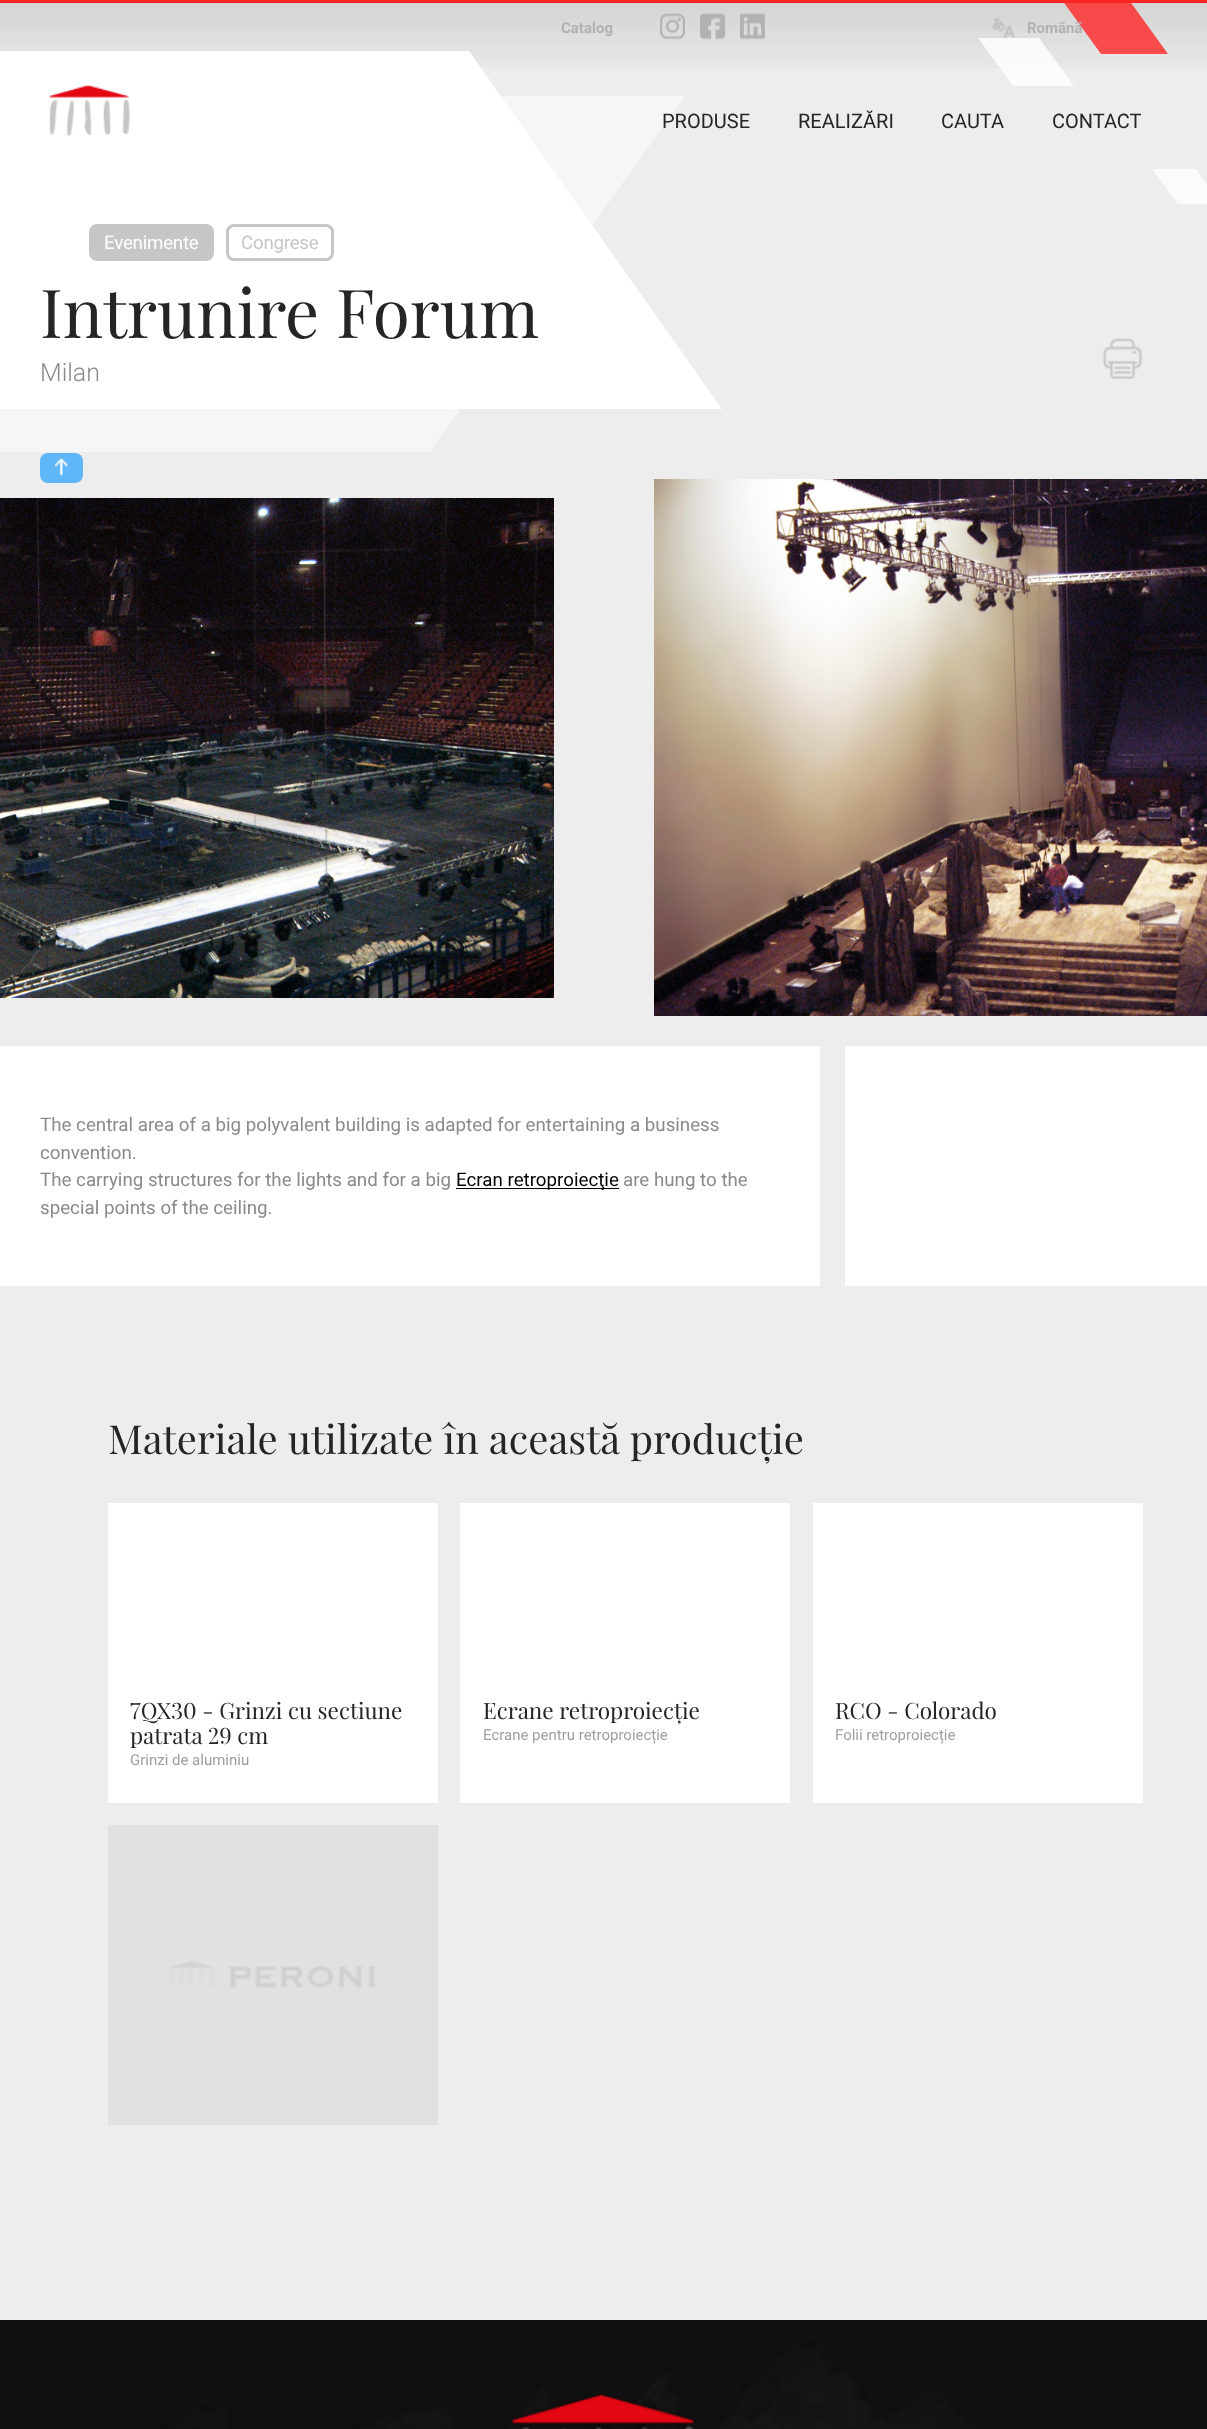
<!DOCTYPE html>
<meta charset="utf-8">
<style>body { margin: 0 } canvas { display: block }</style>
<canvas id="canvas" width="1207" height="2429"></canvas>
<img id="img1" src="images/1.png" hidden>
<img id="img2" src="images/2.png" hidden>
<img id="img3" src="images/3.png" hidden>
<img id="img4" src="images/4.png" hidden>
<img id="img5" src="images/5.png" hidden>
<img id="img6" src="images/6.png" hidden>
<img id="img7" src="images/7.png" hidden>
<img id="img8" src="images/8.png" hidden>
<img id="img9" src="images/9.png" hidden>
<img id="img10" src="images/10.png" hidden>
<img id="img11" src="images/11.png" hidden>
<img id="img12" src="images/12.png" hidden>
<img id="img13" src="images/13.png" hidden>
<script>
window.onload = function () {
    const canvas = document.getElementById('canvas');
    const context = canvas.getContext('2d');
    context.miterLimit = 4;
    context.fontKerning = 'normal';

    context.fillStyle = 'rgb(237, 237, 237)';
    context.fillRect(0, 0, 1207, 2429);
    context.drawImage(document.getElementById('img1'), 0, 3, 1207, 65);
    context.drawImage(document.getElementById('img2'), 660, 13, 25, 27);
    context.drawImage(document.getElementById('img3'), 700, 13, 25, 27);
    context.drawImage(document.getElementById('img4'), 740, 13, 25, 27);
    context.drawImage(document.getElementById('img5'), 992, 17, 23, 21);
    context.fillStyle = 'rgb(255, 255, 255)';
    context.beginPath();
    context.moveTo(-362, 51);
    context.lineTo(469, 51);
    context.lineTo(722, 409);
    context.lineTo(-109, 409);
    context.closePath();
    context.fill();
    context.fillStyle = 'rgba(255, 255, 255, 0.48)';
    context.beginPath();
    context.moveTo(-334, 96);
    context.lineTo(685, 96);
    context.lineTo(430, 452);
    context.lineTo(-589, 452);
    context.closePath();
    context.fill();
    context.drawImage(document.getElementById('img6'), 48, 84, 83, 52);
    context.fillStyle = 'rgba(255, 255, 255, 0.8)';
    context.beginPath();
    context.moveTo(978, 38);
    context.lineTo(1039, 38);
    context.lineTo(1074, 86);
    context.lineTo(1013, 86);
    context.closePath();
    context.fill();
    context.fillStyle = 'rgba(255, 37, 37, 0.8)';
    context.beginPath();
    context.moveTo(1062, 0);
    context.lineTo(1129, 0);
    context.lineTo(1168, 54);
    context.lineTo(1101, 54);
    context.closePath();
    context.fill();
    context.fillStyle = 'rgb(255, 37, 37)';
    context.fillRect(0, 0, 1207, 3);
    context.fillStyle = 'rgb(251, 251, 251)';
    context.beginPath();
    context.moveTo(1152, 169);
    context.lineTo(1196, 169);
    context.lineTo(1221, 204);
    context.lineTo(1178, 204);
    context.closePath();
    context.fill();
    context.fillStyle = 'rgb(198, 198, 198)';
    context.beginPath();
    context.roundRect(90.5, 225.5, 122, 34, 6.5);
    context.fill();
    context.strokeStyle = 'rgb(198, 198, 198)';
    context.lineWidth = 3;
    context.stroke();
    context.beginPath();
    context.roundRect(227.5, 225.5, 105, 34, 6.5);
    context.stroke();
    context.fillStyle = 'rgb(95, 182, 248)';
    context.beginPath();
    context.roundRect(40, 453, 43, 30, 8);
    context.fill();
    context.drawImage(document.getElementById('img7'), 54, 458, 14, 18);
    context.drawImage(document.getElementById('img8'), 1102, 338, 41, 41);
    context.drawImage(document.getElementById('img9'), 0, 498, 554, 500);
    context.drawImage(document.getElementById('img10'), 654, 479, 553, 537);
    context.fillStyle = 'rgb(255, 255, 255)';
    context.fillRect(0, 1046, 820, 240);
    context.fillStyle = 'rgb(0, 0, 0)';
    context.fillRect(456, 1188, 163, 1);
    context.fillStyle = 'rgb(255, 255, 255)';
    context.fillRect(845, 1046, 362, 240);
    context.fillRect(108, 1503, 330, 300);
    context.fillRect(460, 1503, 330, 300);
    context.fillRect(813, 1503, 330, 300);
    context.fillStyle = 'rgb(225, 225, 225)';
    context.fillRect(108, 1825, 330, 300);
    context.drawImage(document.getElementById('img11'), 170, 1961, 205, 27);
    context.drawImage(document.getElementById('img12'), 0, 2320, 1207, 109);
    context.drawImage(document.getElementById('img13'), 512, 2394, 183, 35);
    context.font = 'bold 15px Roboto';
    context.fillStyle = 'rgb(178, 178, 178)';
    context.fillText('Catalog', 561, 33);
    context.fillText('Romãnä', 1027, 33);
    context.font = '20px Roboto';
    context.fillStyle = 'rgb(35, 37, 39)';
    context.fillText('PRODUSE', 662, 128);
    context.fillText('REALIZĂRI', 798, 128);
    context.fillText('CAUTA', 941, 128);
    context.fillText('CONTACT', 1052, 128);
    context.letterSpacing = '-0.25px';
    context.font = '18.75px Roboto';
    context.fillStyle = 'rgb(255, 255, 255)';
    context.fillText('Evenimente', 104, 249);
    context.fillStyle = 'rgb(198, 198, 198)';
    context.fillText('Congrese', 241, 249);
    context.letterSpacing = '0px';
    context.font = '67.5px Playfair Display';
    context.fillStyle = 'rgb(35, 37, 39)';
    context.fillText('Intrunire Forum', 40, 338);
    context.font = '300 25px Roboto';
    context.fillStyle = 'rgb(138, 138, 138)';
    context.fillText('Milan', 40, 381);
    context.font = '18.75px Roboto';
    context.fillText('The central area of a big polyvalent building is adapted for entertaining a business', 40, 1131);
    context.fillText('convention.', 40, 1159);
    context.fillText('The carrying structures for the lights and for a big', 40, 1186);
    context.fillStyle = 'rgb(0, 0, 0)';
    context.fillText('Ecran retroproiecţie', 456, 1186);
    context.fillStyle = 'rgb(138, 138, 138)';
    context.fillText('are hung to the', 623, 1186);
    context.fillText('special points of the ceiling.', 40, 1214);
    context.font = '40px Playfair Display';
    context.fillStyle = 'rgb(35, 37, 39)';
    context.fillText('Materiale utilizate în această producție', 108, 1454);
    context.font = '22.5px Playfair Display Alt';
    context.fillText('7QX30 - Grinzi cu sectiune', 130, 1719);
    context.fillText('patrata 29 cm', 130, 1744);
    context.font = '15px Roboto';
    context.fillStyle = 'rgb(158, 158, 158)';
    context.fillText('Grinzi de aluminiu', 130, 1765);
    context.font = '22.5px Playfair Display';
    context.fillStyle = 'rgb(35, 37, 39)';
    context.fillText('Ecrane retroproiecție', 483, 1719);
    context.font = '15px Roboto';
    context.fillStyle = 'rgb(158, 158, 158)';
    context.fillText('Ecrane pentru retroproiecție', 483, 1740);
    context.font = '22.5px Playfair Display';
    context.fillStyle = 'rgb(35, 37, 39)';
    context.fillText('RCO - Colorado', 835, 1719);
    context.font = '15px Roboto';
    context.fillStyle = 'rgb(158, 158, 158)';
    context.fillText('Folii retroproiecție', 835, 1740);
};
</script>
